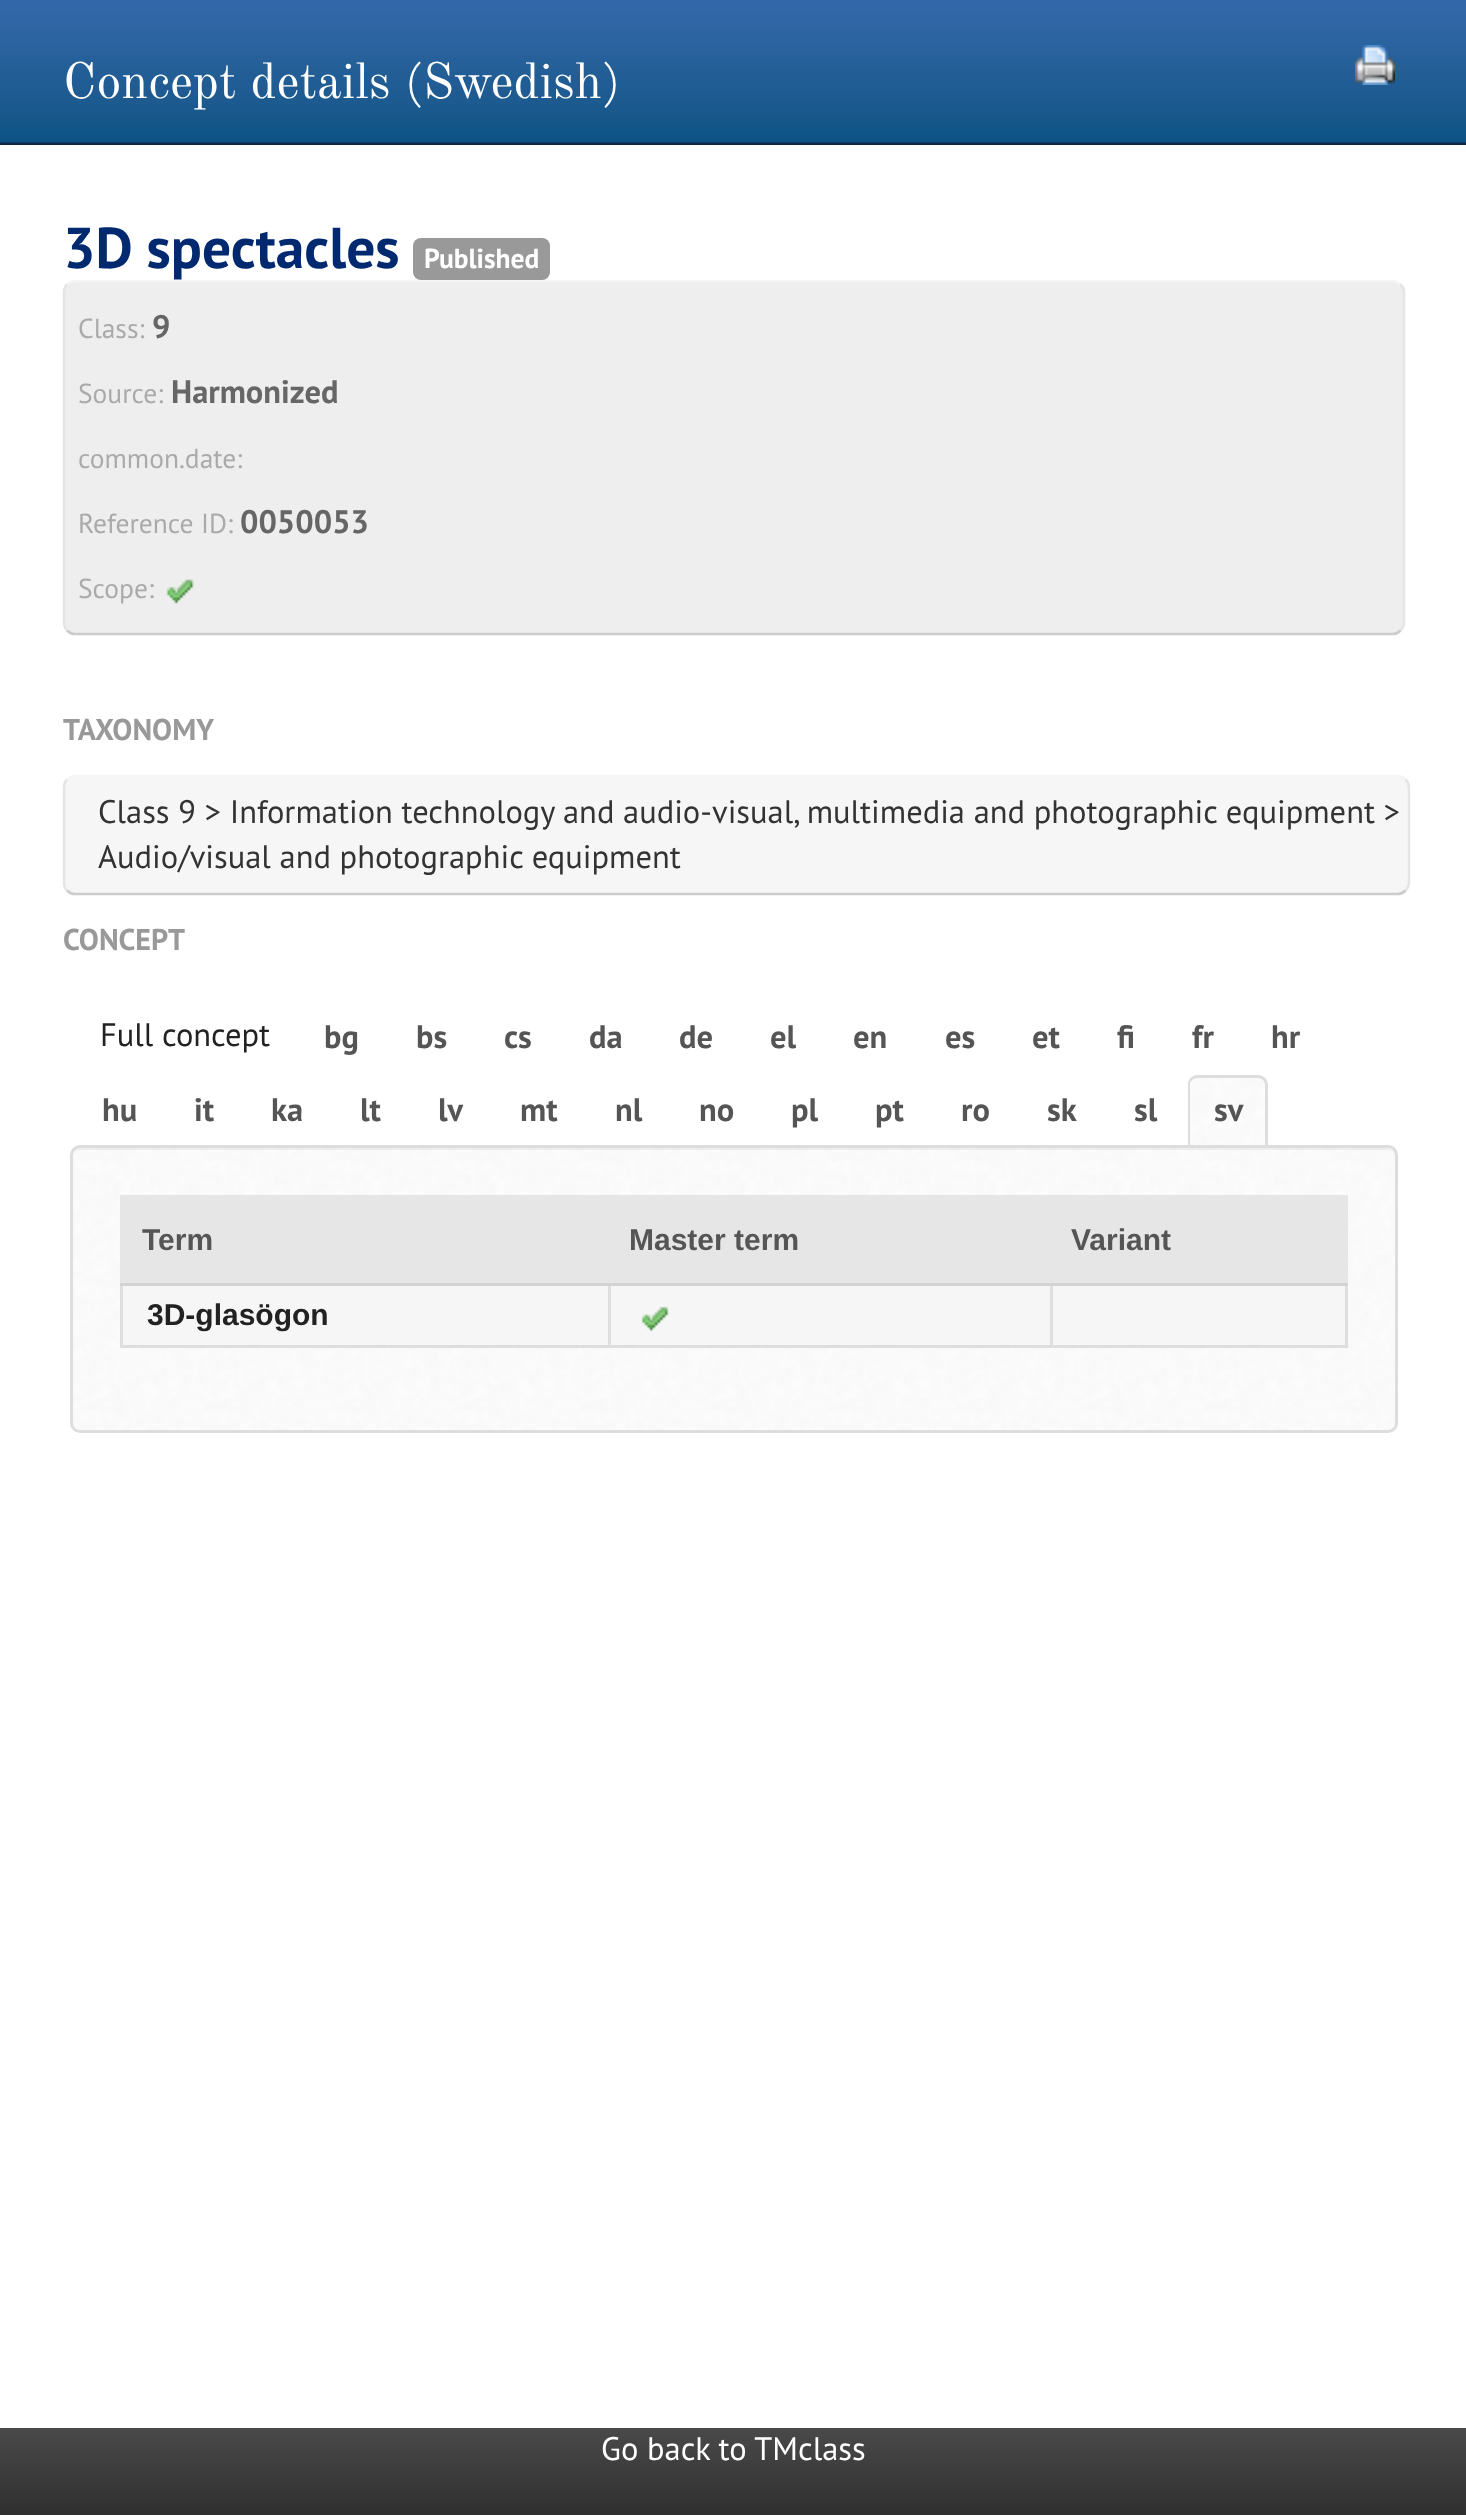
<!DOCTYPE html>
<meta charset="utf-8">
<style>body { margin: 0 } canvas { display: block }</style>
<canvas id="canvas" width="1466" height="2515"></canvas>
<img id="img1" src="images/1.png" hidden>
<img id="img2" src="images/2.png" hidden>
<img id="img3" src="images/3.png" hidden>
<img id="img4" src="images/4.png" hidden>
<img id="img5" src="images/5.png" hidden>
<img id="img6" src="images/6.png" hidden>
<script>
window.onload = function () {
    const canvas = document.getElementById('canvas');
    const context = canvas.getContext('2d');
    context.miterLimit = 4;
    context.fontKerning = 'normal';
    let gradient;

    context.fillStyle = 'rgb(255, 255, 255)';
    context.fillRect(0, 0, 1466, 2515);
    context.drawImage(document.getElementById('img1'), 0, 0, 1466, 145);
    context.drawImage(document.getElementById('img2'), 1355, 45, 40, 40);
    context.fillStyle = 'rgb(238, 238, 238)';
    context.beginPath();
    context.roundRect(63, 280, 1342, 355, 13);
    context.fill();
    context.beginPath();
    context.moveTo(67, 284.5);
    context.bezierCurveTo(69, 282.5, 72, 281, 75, 281);
    context.lineTo(1392.5, 281);
    context.bezierCurveTo(1395.5, 281, 1398.5, 282.5, 1400.5, 284.5);
    context.strokeStyle = 'rgb(245, 245, 245)';
    context.lineWidth = 2.5;
    context.stroke();
    context.fillStyle = 'rgb(153, 153, 153)';
    context.beginPath();
    context.roundRect(413, 238, 137, 42, 8);
    context.fill();
    context.beginPath();
    context.moveTo(1400.5, 284.5);
    context.bezierCurveTo(1402.5, 286.5, 1404, 289.5, 1404, 292.5);
    context.lineTo(1404, 622.5);
    context.bezierCurveTo(1404, 625.5, 1402.5, 628.5, 1400.5, 630.5);
    context.strokeStyle = 'rgb(229, 229, 229)';
    context.stroke();
    context.beginPath();
    context.moveTo(1400.5, 630.5);
    context.bezierCurveTo(1398.5, 632.5, 1395.5, 634, 1392.5, 634);
    context.lineTo(75, 634);
    context.bezierCurveTo(72, 634, 69, 632.5, 67, 630.5);
    context.strokeStyle = 'rgb(204, 204, 204)';
    context.stroke();
    context.beginPath();
    context.moveTo(67, 630.5);
    context.bezierCurveTo(65, 628.5, 64, 625.5, 64, 622.5);
    context.lineTo(64, 292.5);
    context.bezierCurveTo(64, 289.5, 65, 286.5, 67, 284.5);
    context.strokeStyle = 'rgb(229, 229, 229)';
    context.stroke();
    context.drawImage(document.getElementById('img3'), 166, 579, 28, 25);
    context.fillStyle = 'rgb(246, 246, 246)';
    context.beginPath();
    context.roundRect(63, 775, 1347, 120, 13);
    context.fill();
    context.beginPath();
    context.moveTo(67, 779.5);
    context.bezierCurveTo(69, 777.5, 72, 776, 75, 776);
    context.lineTo(1397.5, 776);
    context.bezierCurveTo(1400.5, 776, 1403.5, 777.5, 1405.5, 779.5);
    context.strokeStyle = 'rgb(245, 245, 245)';
    context.stroke();
    context.beginPath();
    context.moveTo(1405.5, 779.5);
    context.bezierCurveTo(1407.5, 781.5, 1409, 784.5, 1409, 787.5);
    context.lineTo(1409, 882.5);
    context.bezierCurveTo(1409, 885.5, 1407.5, 888.5, 1405.5, 890.5);
    context.strokeStyle = 'rgb(229, 229, 229)';
    context.stroke();
    context.beginPath();
    context.moveTo(1405.5, 890.5);
    context.bezierCurveTo(1403.5, 892.5, 1400.5, 894, 1397.5, 894);
    context.lineTo(75, 894);
    context.bezierCurveTo(72, 894, 69, 892.5, 67, 890.5);
    context.strokeStyle = 'rgb(204, 204, 204)';
    context.stroke();
    context.beginPath();
    context.moveTo(67, 890.5);
    context.bezierCurveTo(65, 888.5, 64, 885.5, 64, 882.5);
    context.lineTo(64, 787.5);
    context.bezierCurveTo(64, 784.5, 65, 781.5, 67, 779.5);
    context.strokeStyle = 'rgb(229, 229, 229)';
    context.stroke();
    context.drawImage(document.getElementById('img4'), 1188, 1075, 79, 70);
    context.fillStyle = 'rgb(221, 221, 221)';
    context.beginPath();
    context.moveTo(1198, 1075);
    context.lineTo(1258, 1075);
    context.bezierCurveTo(1263, 1075, 1268, 1079, 1268, 1085);
    context.lineTo(1268, 1145);
    context.lineTo(1188, 1145);
    context.lineTo(1188, 1085);
    context.bezierCurveTo(1188, 1079, 1192, 1075, 1198, 1075);
    context.closePath();
    context.moveTo(1198, 1078);
    context.lineTo(1258, 1078);
    context.bezierCurveTo(1262, 1078, 1265, 1081, 1265, 1085);
    context.lineTo(1265, 1145);
    context.lineTo(1190, 1145);
    context.lineTo(1190, 1085);
    context.bezierCurveTo(1190, 1081, 1193, 1078, 1198, 1078);
    context.closePath();
    context.fill('evenodd');
    context.drawImage(document.getElementById('img5'), 73, 1148, 1322, 282);
    context.fillStyle = 'rgba(0, 0, 0, 0.05)';
    context.beginPath();
    context.moveTo(80, 1150);
    context.lineTo(1388, 1150);
    context.bezierCurveTo(1392, 1150, 1395, 1153, 1395, 1158);
    context.lineTo(1395, 1156);
    context.bezierCurveTo(1395, 1152, 1391, 1148, 1387, 1148);
    context.lineTo(81, 1148);
    context.bezierCurveTo(78, 1148, 75, 1150, 73, 1153);
    context.bezierCurveTo(75, 1151, 78, 1150, 80, 1150);
    context.closePath();
    context.fill();
    context.beginPath();
    context.roundRect(71.5, 1146.5, 1325, 285, 8.5);
    context.strokeStyle = 'rgb(221, 221, 221)';
    context.lineWidth = 3;
    context.stroke();
    context.fillStyle = 'rgb(230, 230, 230)';
    context.fillRect(120, 1195, 1228, 88);
    context.fillStyle = 'rgb(222, 222, 222)';
    context.fillRect(120, 1345, 1228, 3);
    context.fillRect(120, 1283, 3, 65);
    context.fillStyle = 'rgb(246, 246, 246)';
    context.fillRect(123, 1286, 1222, 59);
    context.fillStyle = 'rgb(222, 222, 222)';
    context.fillRect(608, 1283, 3, 65);
    context.fillRect(1345, 1283, 3, 65);
    context.fillRect(1050, 1283, 3, 65);
    context.fillStyle = 'rgb(211, 211, 211)';
    context.fillRect(120, 1283, 1228, 3);
    context.drawImage(document.getElementById('img6'), 641, 1306, 28, 26);
    gradient = context.createLinearGradient(734, 2428, 734, 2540);
    gradient.addColorStop(0.01, 'rgb(74, 73, 74)');
    gradient.addColorStop(1, 'rgb(41, 40, 41)');
    context.fillStyle = gradient;
    context.fillRect(0, 2428, 1466, 87);
    context.font = '50px Old Standard TT';
    context.fillStyle = 'rgb(255, 255, 255)';
    context.fillText('Concept details (Swedish)', 63, 98);
    context.font = 'bold 57.5px PT Sans';
    context.fillStyle = 'rgb(0, 41, 112)';
    context.fillText('3D spectacles', 63, 268);
    context.font = 'bold 27.5px PT Sans';
    context.fillStyle = 'rgb(255, 255, 255)';
    context.fillText('Published', 424, 268);
    context.font = '27.5px PT Sans';
    context.fillStyle = 'rgb(170, 170, 170)';
    context.fillText('Class:', 78, 338);
    context.font = 'bold 32.5px PT Sans';
    context.fillStyle = 'rgb(102, 102, 102)';
    context.fillText('9', 152, 338);
    context.font = '27.5px PT Sans';
    context.fillStyle = 'rgb(170, 170, 170)';
    context.fillText('Source:', 78, 403);
    context.font = 'bold 32.5px PT Sans';
    context.fillStyle = 'rgb(102, 102, 102)';
    context.fillText('Harmonized', 171, 403);
    context.font = '27.5px PT Sans';
    context.fillStyle = 'rgb(170, 170, 170)';
    context.fillText('common.date:', 78, 468);
    context.fillText('Reference ID:', 78, 533);
    context.font = 'bold 32.5px PT Sans';
    context.fillStyle = 'rgb(102, 102, 102)';
    context.fillText('0050053', 240, 533);
    context.font = '27.5px PT Sans';
    context.fillStyle = 'rgb(170, 170, 170)';
    context.fillText('Scope:', 78, 598);
    context.font = 'bold 30px PT Sans';
    context.fillStyle = 'rgb(153, 153, 153)';
    context.fillText('TAXONOMY', 63, 740);
    context.font = '32.5px PT Sans';
    context.fillStyle = 'rgb(51, 51, 51)';
    context.fillText('Class 9 > Information technology and audio-visual, multimedia and photographic equipment >', 98, 823);
    context.fillText('Audio/visual and photographic equipment', 98, 868);
    context.font = 'bold 30px PT Sans';
    context.fillStyle = 'rgb(153, 153, 153)';
    context.fillText('CONCEPT', 63, 950);
    context.font = '32.5px PT Sans';
    context.fillStyle = 'rgb(34, 34, 34)';
    context.fillText('Full concept', 100, 1046);
    context.font = 'bold 32.5px PT Sans';
    context.fillStyle = 'rgb(85, 85, 85)';
    context.fillText('bg', 324, 1048);
    context.fillText('bs', 416, 1048);
    context.fillText('cs', 504, 1048);
    context.fillText('da', 589, 1048);
    context.fillText('de', 679, 1048);
    context.fillText('el', 770, 1048);
    context.fillText('en', 853, 1048);
    context.fillText('es', 945, 1048);
    context.fillText('et', 1032, 1048);
    context.fillText('fi', 1117, 1048);
    context.fillText('fr', 1192, 1048);
    context.fillText('hr', 1271, 1048);
    context.fillText('hu', 102, 1121);
    context.fillText('it', 194, 1121);
    context.fillText('ka', 271, 1121);
    context.fillText('lt', 360, 1121);
    context.fillText('lv', 438, 1121);
    context.fillText('mt', 520, 1121);
    context.fillText('nl', 615, 1121);
    context.fillText('no', 699, 1121);
    context.fillText('pl', 791, 1121);
    context.fillText('pt', 875, 1121);
    context.fillText('ro', 961, 1121);
    context.fillText('sk', 1047, 1121);
    context.fillText('sl', 1134, 1121);
    context.fillText('sv', 1214, 1121);
    context.font = 'bold 30px Liberation Sans';
    context.fillText('Term', 142, 1250);
    context.fillText('Master term', 629, 1250);
    context.fillText('Variant', 1071, 1250);
    context.fillStyle = 'rgb(34, 34, 34)';
    context.fillText('3D-glasögon', 147, 1325);
    context.font = '32.5px PT Sans';
    context.fillStyle = 'rgb(255, 255, 255)';
    context.fillText('Go back to TMclass', 601, 2460);
};
</script>
